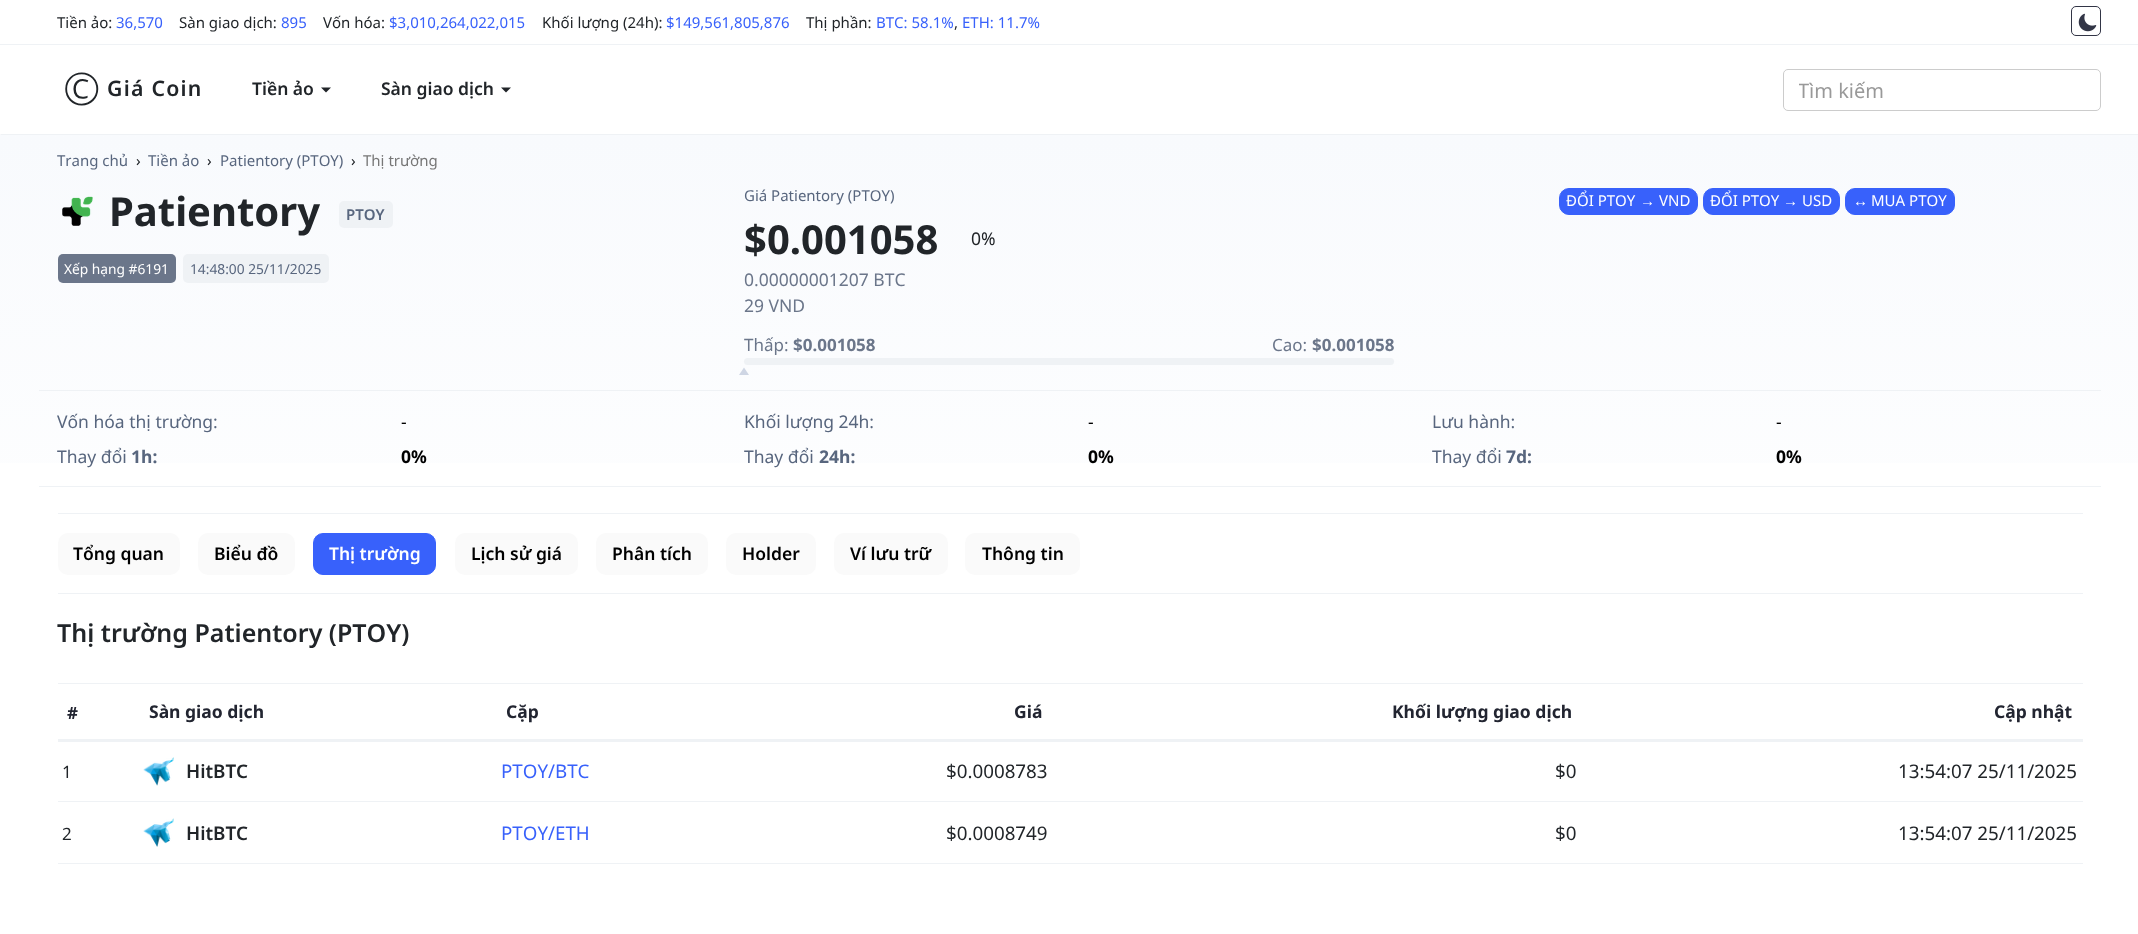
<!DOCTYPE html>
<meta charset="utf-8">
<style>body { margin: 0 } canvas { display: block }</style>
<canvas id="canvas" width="2138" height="934"></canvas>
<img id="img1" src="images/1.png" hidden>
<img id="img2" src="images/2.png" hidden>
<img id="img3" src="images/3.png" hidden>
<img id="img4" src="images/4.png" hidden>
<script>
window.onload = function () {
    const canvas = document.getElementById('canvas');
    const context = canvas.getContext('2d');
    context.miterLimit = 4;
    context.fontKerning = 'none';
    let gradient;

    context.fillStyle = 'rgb(255, 255, 255)';
    context.fillRect(0, 0, 2138, 934);
    context.fillStyle = 'rgb(239, 242, 245)';
    context.fillRect(0, 44, 2138, 1);
    context.beginPath();
    context.roundRect(2071.5, 6.5, 29, 29, 4.5);
    context.strokeStyle = 'rgb(50, 53, 70)';
    context.stroke();
    context.drawImage(document.getElementById('img1'), 2078, 13, 19, 19);
    context.beginPath();
    context.moveTo(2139, 135);
    context.lineTo(0, 135);
    context.lineTo(1, 134);
    context.lineTo(2138, 134);
    context.closePath();
    context.fill();
    context.fillStyle = 'rgb(33, 37, 41)';
    context.beginPath();
    context.moveTo(321, 87.5);
    context.lineTo(331, 87.5);
    context.lineTo(326, 92.5);
    context.closePath();
    context.fill();
    context.beginPath();
    context.moveTo(501, 87.5);
    context.lineTo(511, 87.5);
    context.lineTo(506, 92.5);
    context.closePath();
    context.fill();
    context.beginPath();
    context.roundRect(1783.5, 69.5, 317, 41, 4.5);
    context.strokeStyle = 'rgb(204, 204, 204)';
    context.stroke();
    gradient = context.createLinearGradient(1069, 135, 1069, 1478);
    gradient.addColorStop(0, 'rgb(248, 250, 253)');
    gradient.addColorStop(0.38, 'rgb(255, 255, 255)');
    context.fillStyle = gradient;
    context.fillRect(0, 135, 2138, 328);
    context.drawImage(document.getElementById('img2'), 62, 196, 31, 30);
    context.fillStyle = 'rgb(239, 242, 245)';
    context.beginPath();
    context.roundRect(339, 201, 54, 27, 5);
    context.fill();
    context.fillStyle = 'rgb(107, 118, 138)';
    context.beginPath();
    context.roundRect(58, 254, 118, 29, 5);
    context.fill();
    context.fillStyle = 'rgb(239, 242, 245)';
    context.beginPath();
    context.roundRect(183, 254, 146, 29, 5);
    context.fill();
    context.beginPath();
    context.roundRect(744, 358, 650, 7, 3.5);
    context.fill();
    context.fillStyle = 'rgb(207, 214, 228)';
    context.beginPath();
    context.moveTo(749, 375);
    context.lineTo(739, 375);
    context.lineTo(744, 367.5);
    context.closePath();
    context.fill();
    context.fillStyle = 'rgb(56, 97, 251)';
    context.beginPath();
    context.roundRect(1559.5, 188.5, 138, 26, 9.5);
    context.fill();
    context.strokeStyle = 'rgb(56, 97, 251)';
    context.stroke();
    context.beginPath();
    context.roundRect(1703.5, 188.5, 136, 26, 9.5);
    context.fill();
    context.stroke();
    context.beginPath();
    context.roundRect(1845.5, 188.5, 109, 26, 9.5);
    context.fill();
    context.stroke();
    context.fillStyle = 'rgb(239, 242, 245)';
    context.fillRect(39, 390, 2062, 1);
    context.fillRect(39, 486, 2062, 1);
    context.fillRect(58, 513, 2025, 1);
    context.fillRect(58, 593, 2025, 1);
    context.fillStyle = 'rgb(250, 250, 250)';
    context.beginPath();
    context.roundRect(58, 533, 122, 42, 10);
    context.fill();
    context.beginPath();
    context.roundRect(198, 533, 97, 42, 10);
    context.fill();
    context.fillStyle = 'rgb(56, 97, 251)';
    context.beginPath();
    context.roundRect(313.5, 533.5, 122, 41, 9.5);
    context.fill();
    context.stroke();
    context.fillStyle = 'rgb(250, 250, 250)';
    context.beginPath();
    context.roundRect(455, 533, 123, 42, 10);
    context.fill();
    context.beginPath();
    context.roundRect(596, 533, 112, 42, 10);
    context.fill();
    context.beginPath();
    context.roundRect(726, 533, 90, 42, 10);
    context.fill();
    context.beginPath();
    context.roundRect(834, 533, 114, 42, 10);
    context.fill();
    context.beginPath();
    context.roundRect(965, 533, 115, 42, 10);
    context.fill();
    context.fillStyle = 'rgb(239, 242, 245)';
    context.fillRect(58, 683, 2025, 1);
    context.fillRect(58, 863, 2025, 1);
    context.fillRect(58, 739, 2025, 3);
    context.drawImage(document.getElementById('img3'), 143, 757, 31, 29);
    context.drawImage(document.getElementById('img4'), 143, 818, 31, 29);
    context.fillRect(58, 801, 2025, 1);
    context.font = '15px Noto Sans';
    context.fillStyle = 'rgb(33, 37, 41)';
    context.fillText('Tiền ảo:', 57, 28);
    context.fillStyle = 'rgb(56, 97, 251)';
    context.fillText('36,570', 116, 28);
    context.fillStyle = 'rgb(33, 37, 41)';
    context.fillText('Sàn giao dịch:', 179, 28);
    context.fillStyle = 'rgb(56, 97, 251)';
    context.fillText('895', 281, 28);
    context.fillStyle = 'rgb(33, 37, 41)';
    context.fillText('Vốn hóa:', 323, 28);
    context.fillStyle = 'rgb(56, 97, 251)';
    context.fillText('$3,010,264,022,015', 389, 28);
    context.fillStyle = 'rgb(33, 37, 41)';
    context.fillText('Khối lượng (24h):', 542, 28);
    context.fillStyle = 'rgb(56, 97, 251)';
    context.fillText('$149,561,805,876', 666, 28);
    context.fillStyle = 'rgb(33, 37, 41)';
    context.fillText('Thị phần:', 806, 28);
    context.fillStyle = 'rgb(56, 97, 251)';
    context.fillText('BTC: 58.1%', 876, 28);
    context.fillStyle = 'rgb(33, 37, 41)';
    context.fillText(',', 954, 28);
    context.fillStyle = 'rgb(56, 97, 251)';
    context.fillText('ETH: 11.7%', 962, 28);
    context.letterSpacing = '1.25px';
    context.font = '300 45px Noto Sans';
    context.fillStyle = 'rgb(33, 37, 41)';
    context.fillText('©', 63, 105);
    context.font = '600 21.25px Noto Sans';
    context.fillText('Giá Coin', 107, 96);
    context.letterSpacing = '0px';
    context.font = '600 17.5px Noto Sans';
    context.fillText('Tiền ảo', 252, 95);
    context.fillText('Sàn giao dịch', 381, 95);
    context.save();
    context.beginPath();
    context.rect(1799, 76, 281, 28);
    context.clip();
    context.font = '20px Noto Sans';
    context.fillStyle = 'rgb(153, 153, 153)';
    context.fillText('Tìm kiếm', 1798, 98);
    context.restore();
    context.font = '15px Noto Sans';
    context.fillStyle = 'rgb(88, 102, 126)';
    context.fillText('Trang chủ', 57, 166);
    context.fillStyle = 'rgb(33, 37, 41)';
    context.fillText('›', 136, 166);
    context.fillStyle = 'rgb(88, 102, 126)';
    context.fillText('Tiền ảo', 148, 166);
    context.fillStyle = 'rgb(33, 37, 41)';
    context.fillText('›', 207, 166);
    context.fillStyle = 'rgb(88, 102, 126)';
    context.fillText('Patientory (PTOY)', 220, 166);
    context.fillStyle = 'rgb(33, 37, 41)';
    context.fillText('›', 351, 166);
    context.fillStyle = 'rgb(119, 119, 119)';
    context.fillText('Thị trường', 363, 166);
    context.font = 'bold 40px Noto Sans';
    context.fillStyle = 'rgb(33, 37, 41)';
    context.fillText('Patientory', 109, 226);
    context.font = '600 15px Noto Sans';
    context.fillStyle = 'rgb(88, 102, 126)';
    context.fillText('PTOY', 346, 220);
    context.font = '13.75px Noto Sans';
    context.fillStyle = 'rgb(255, 255, 255)';
    context.fillText('Xếp hạng #6191', 64, 274);
    context.fillStyle = 'rgb(88, 102, 126)';
    context.fillText('14:48:00 25/11/2025', 190, 274);
    context.font = '15px Noto Sans';
    context.fillText('Giá Patientory (PTOY)', 744, 201);
    context.font = 'bold 40px Noto Sans';
    context.fillStyle = 'rgb(33, 37, 41)';
    context.fillText('$0.001058', 744, 254);
    context.font = '17.5px Noto Sans';
    context.fillText('0%', 971, 245);
    context.fillStyle = 'rgb(107, 118, 138)';
    context.fillText('0.00000001207 BTC', 744, 286);
    context.fillText('29 VND', 744, 312);
    context.font = '17px Noto Sans';
    context.fillText('Thấp:', 744, 351);
    context.font = 'bold 17px Noto Sans';
    context.fillText('$0.001058', 793, 351);
    context.font = '17px Noto Sans';
    context.fillText('Cao:', 1272, 351);
    context.font = 'bold 17px Noto Sans';
    context.fillText('$0.001058', 1312, 351);
    context.font = '15px Noto Sans';
    context.fillStyle = 'rgb(255, 255, 255)';
    context.fillText('ĐỔI PTOY', 1566, 206);
    context.font = '15px Liberation Sans';
    context.fillText('→', 1640, 206);
    context.font = '15px Noto Sans';
    context.fillText('VND', 1659, 206);
    context.fillText('ĐỔI PTOY', 1710, 206);
    context.font = '15px Liberation Sans';
    context.fillText('→', 1783, 206);
    context.font = '15px Noto Sans';
    context.fillText('USD', 1802, 206);
    context.font = '15px Liberation Sans';
    context.fillText('↔', 1853, 206);
    context.font = '15px Noto Sans';
    context.fillText('MUA PTOY', 1871, 206);
    context.font = '17.5px Noto Sans';
    context.fillStyle = 'rgb(88, 102, 126)';
    context.fillText('Vốn hóa thị trường:', 57, 428);
    context.fillStyle = 'rgb(0, 0, 0)';
    context.fillText('-', 401, 428);
    context.fillStyle = 'rgb(88, 102, 126)';
    context.fillText('Khối lượng 24h:', 744, 428);
    context.fillStyle = 'rgb(0, 0, 0)';
    context.fillText('-', 1088, 428);
    context.fillStyle = 'rgb(88, 102, 126)';
    context.fillText('Lưu hành:', 1432, 428);
    context.fillStyle = 'rgb(0, 0, 0)';
    context.fillText('-', 1776, 428);
    context.fillStyle = 'rgb(88, 102, 126)';
    context.fillText('Thay đổi', 57, 463);
    context.font = 'bold 17.5px Noto Sans';
    context.fillText('1h:', 131, 463);
    context.fillStyle = 'rgb(0, 0, 0)';
    context.fillText('0%', 401, 463);
    context.font = '17.5px Noto Sans';
    context.fillStyle = 'rgb(88, 102, 126)';
    context.fillText('Thay đổi', 744, 463);
    context.font = 'bold 17.5px Noto Sans';
    context.fillText('24h:', 819, 463);
    context.fillStyle = 'rgb(0, 0, 0)';
    context.fillText('0%', 1088, 463);
    context.font = '17.5px Noto Sans';
    context.fillStyle = 'rgb(88, 102, 126)';
    context.fillText('Thay đổi', 1432, 463);
    context.font = 'bold 17.5px Noto Sans';
    context.fillText('7d:', 1506, 463);
    context.fillStyle = 'rgb(0, 0, 0)';
    context.fillText('0%', 1776, 463);
    context.font = '600 17.5px Noto Sans';
    context.fillText('Tổng quan', 73, 560);
    context.fillText('Biểu đồ', 214, 560);
    context.fillStyle = 'rgb(255, 255, 255)';
    context.fillText('Thị trường', 329, 560);
    context.fillStyle = 'rgb(0, 0, 0)';
    context.fillText('Lịch sử giá', 471, 560);
    context.fillText('Phân tích', 612, 560);
    context.fillText('Holder', 742, 560);
    context.fillText('Ví lưu trữ', 850, 560);
    context.fillText('Thông tin', 982, 560);
    context.font = '600 25px Noto Sans';
    context.fillStyle = 'rgb(33, 37, 41)';
    context.fillText('Thị trường Patientory (PTOY)', 57, 642);
    context.font = 'bold 17px Noto Sans';
    context.fillStyle = 'rgb(34, 37, 49)';
    context.fillText('#', 67, 719);
    context.font = 'bold 17.5px Noto Sans';
    context.fillText('Sàn giao dịch', 149, 718);
    context.fillText('Cặp', 506, 718);
    context.fillText('Giá', 1014, 718);
    context.fillText('Khối lượng giao dịch', 1392, 718);
    context.fillText('Cập nhật', 1994, 718);
    context.font = '17px Noto Sans';
    context.fillStyle = 'rgb(33, 37, 41)';
    context.fillText('1', 62, 778);
    context.font = '600 18.75px Noto Sans';
    context.fillText('HitBTC', 186, 778);
    context.font = '18.75px Noto Sans';
    context.fillStyle = 'rgb(56, 97, 251)';
    context.fillText('PTOY/BTC', 501, 778);
    context.fillStyle = 'rgb(33, 37, 41)';
    context.fillText('$0.0008783', 946, 778);
    context.fillText('$0', 1555, 778);
    context.fillText('13:54:07 25/11/2025', 1898, 778);
    context.font = '17px Noto Sans';
    context.fillText('2', 62, 840);
    context.font = '600 18.75px Noto Sans';
    context.fillText('HitBTC', 186, 840);
    context.font = '18.75px Noto Sans';
    context.fillStyle = 'rgb(56, 97, 251)';
    context.fillText('PTOY/ETH', 501, 840);
    context.fillStyle = 'rgb(33, 37, 41)';
    context.fillText('$0.0008749', 946, 840);
    context.fillText('$0', 1555, 840);
    context.fillText('13:54:07 25/11/2025', 1898, 840);
};
</script>
